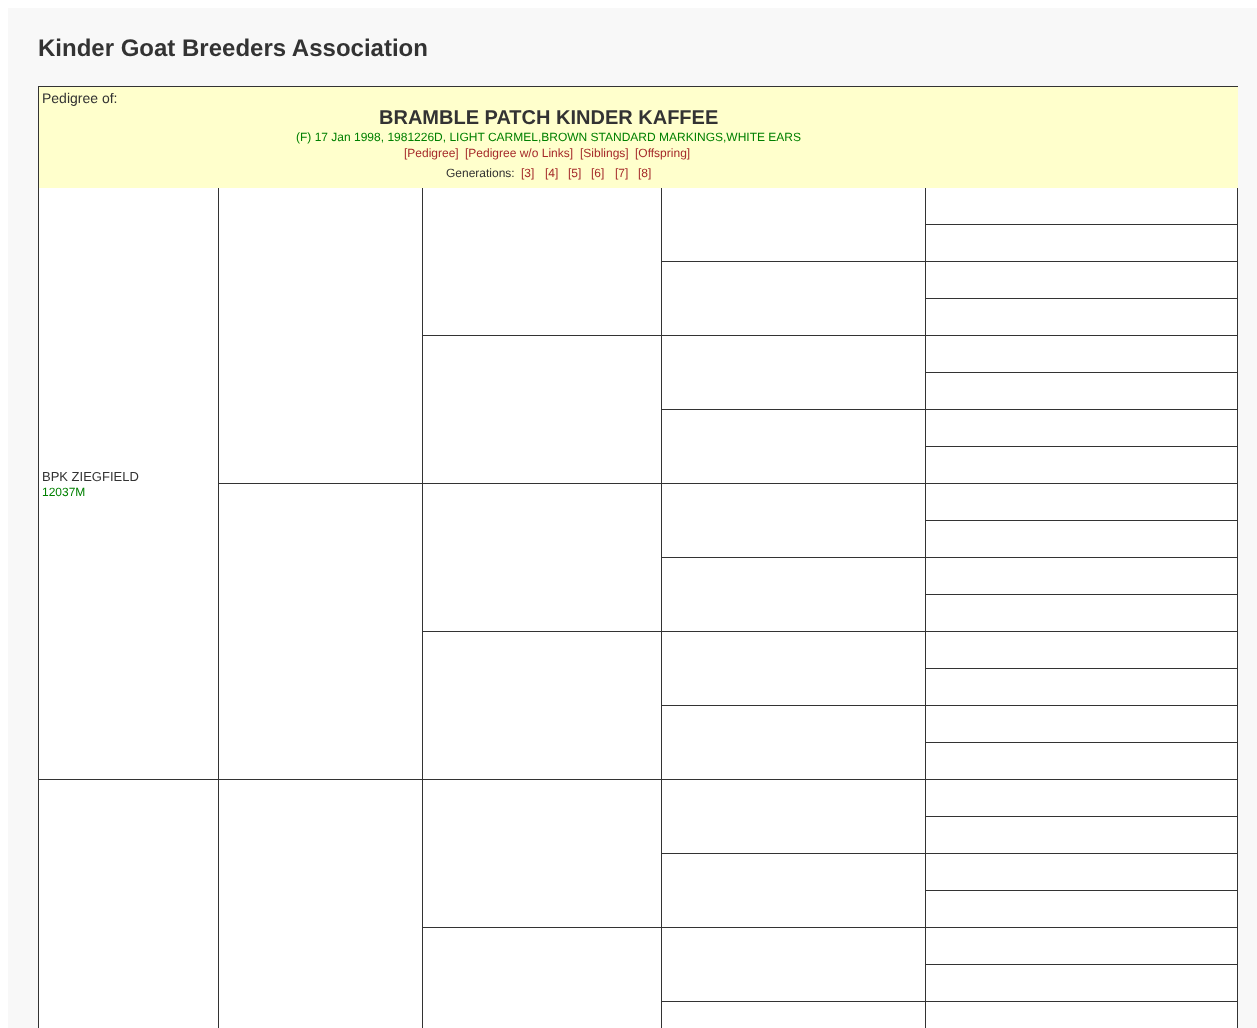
<!DOCTYPE html>
<meta charset="utf-8">
<style>body { margin: 0 } canvas { display: block }</style>
<canvas id="canvas" width="1257" height="1028"></canvas>
<script>
window.onload = function () {
    const canvas = document.getElementById('canvas');
    const context = canvas.getContext('2d');
    context.miterLimit = 4;
    context.fontKerning = 'normal';

    context.fillStyle = 'rgb(255, 255, 255)';
    context.fillRect(0, 0, 1257, 1028);
    context.fillStyle = 'rgb(248, 248, 248)';
    context.fillRect(8, 8, 1249, 1020);
    context.fillStyle = 'rgb(255, 255, 255)';
    context.fillRect(39, 188, 1198, 840);
    context.fillStyle = 'rgb(51, 51, 51)';
    context.fillRect(38, 86, 1200, 1);
    context.fillRect(1237, 86, 1, 942);
    context.fillRect(38, 86, 1, 942);
    context.fillRect(925, 483, 313, 1);
    context.fillRect(925, 520, 313, 1);
    context.fillRect(925, 557, 313, 1);
    context.fillRect(925, 594, 313, 1);
    context.fillRect(925, 631, 313, 1);
    context.fillRect(925, 668, 313, 1);
    context.fillRect(925, 705, 313, 1);
    context.fillRect(925, 742, 313, 1);
    context.fillRect(925, 779, 313, 1);
    context.fillRect(925, 816, 313, 1);
    context.fillRect(925, 853, 313, 1);
    context.fillRect(925, 890, 313, 1);
    context.fillRect(925, 927, 313, 1);
    context.fillRect(925, 964, 313, 1);
    context.fillRect(925, 1001, 313, 1);
    context.fillRect(925, 1001, 1, 27);
    context.fillRect(661, 1001, 265, 1);
    context.fillRect(925, 964, 1, 38);
    context.fillRect(925, 927, 1, 38);
    context.fillRect(661, 927, 265, 1);
    context.fillRect(925, 890, 1, 38);
    context.fillRect(925, 853, 1, 38);
    context.fillRect(661, 853, 265, 1);
    context.fillRect(925, 816, 1, 38);
    context.fillRect(925, 779, 1, 38);
    context.fillRect(661, 779, 265, 1);
    context.fillRect(925, 742, 1, 38);
    context.fillRect(925, 705, 1, 38);
    context.fillRect(661, 705, 265, 1);
    context.fillRect(925, 668, 1, 38);
    context.fillRect(925, 631, 1, 38);
    context.fillRect(661, 631, 265, 1);
    context.fillRect(925, 594, 1, 38);
    context.fillRect(925, 557, 1, 38);
    context.fillRect(661, 557, 265, 1);
    context.fillRect(925, 520, 1, 38);
    context.fillRect(925, 483, 1, 38);
    context.fillRect(661, 483, 265, 1);
    context.fillRect(661, 1001, 1, 27);
    context.fillRect(661, 927, 1, 75);
    context.fillRect(422, 927, 240, 1);
    context.fillRect(661, 853, 1, 75);
    context.fillRect(661, 779, 1, 75);
    context.fillRect(422, 779, 240, 1);
    context.fillRect(661, 705, 1, 75);
    context.fillRect(661, 631, 1, 75);
    context.fillRect(422, 631, 240, 1);
    context.fillRect(661, 557, 1, 75);
    context.fillRect(661, 483, 1, 75);
    context.fillRect(422, 483, 240, 1);
    context.fillRect(422, 927, 1, 101);
    context.fillRect(422, 779, 1, 149);
    context.fillRect(218, 779, 205, 1);
    context.fillRect(422, 631, 1, 149);
    context.fillRect(422, 483, 1, 149);
    context.fillRect(218, 483, 205, 1);
    context.fillRect(218, 779, 1, 249);
    context.fillRect(38, 779, 181, 1);
    context.fillRect(218, 187, 1, 593);
    context.fillRect(925, 335, 313, 1);
    context.fillRect(925, 372, 313, 1);
    context.fillRect(925, 409, 313, 1);
    context.fillRect(925, 446, 313, 1);
    context.fillRect(925, 446, 1, 38);
    context.fillRect(925, 409, 1, 38);
    context.fillRect(661, 409, 265, 1);
    context.fillRect(925, 372, 1, 38);
    context.fillRect(925, 335, 1, 38);
    context.fillRect(661, 335, 265, 1);
    context.fillRect(661, 409, 1, 75);
    context.fillRect(661, 335, 1, 75);
    context.fillRect(422, 335, 240, 1);
    context.fillRect(422, 187, 1, 297);
    context.fillRect(925, 261, 313, 1);
    context.fillRect(925, 298, 313, 1);
    context.fillRect(925, 298, 1, 38);
    context.fillRect(925, 261, 1, 38);
    context.fillRect(661, 261, 265, 1);
    context.fillRect(661, 187, 1, 149);
    context.fillRect(925, 224, 313, 1);
    context.fillRect(925, 187, 1, 75);
    context.fillStyle = 'rgb(255, 255, 204)';
    context.fillRect(39, 87, 1199, 101);
    context.font = 'bold 24px Liberation Sans';
    context.fillStyle = 'rgb(51, 51, 51)';
    context.fillText('Kinder Goat Breeders Association', 38, 56);
    context.font = '14px Liberation Sans';
    context.fillText('Pedigree of:', 42, 103);
    context.font = 'bold 20px Liberation Sans';
    context.fillText('BRAMBLE PATCH KINDER KAFFEE', 379, 124);
    context.font = '12px Liberation Sans';
    context.fillStyle = 'rgb(0, 128, 0)';
    context.fillText('(F) 17 Jan 1998, 1981226D, LIGHT CARMEL,BROWN STANDARD MARKINGS,WHITE EARS', 296, 141);
    context.fillStyle = 'rgb(165, 42, 42)';
    context.fillText('[Pedigree]', 404, 157);
    context.fillText('[Pedigree w/o Links]', 465, 157);
    context.fillText('[Siblings]', 580, 157);
    context.fillText('[Offspring]', 635, 157);
    context.fillStyle = 'rgb(51, 51, 51)';
    context.fillText('Generations:', 446, 177);
    context.fillStyle = 'rgb(165, 42, 42)';
    context.fillText('[3]', 521, 177);
    context.fillText('[4]', 545, 177);
    context.fillText('[5]', 568, 177);
    context.fillText('[6]', 591, 177);
    context.fillText('[7]', 615, 177);
    context.fillText('[8]', 638, 177);
    context.font = '13px Liberation Sans';
    context.fillStyle = 'rgb(51, 51, 51)';
    context.fillText('BPK ZIEGFIELD', 42, 481);
    context.font = '12px Liberation Sans';
    context.fillStyle = 'rgb(0, 128, 0)';
    context.fillText('12037M', 42, 496);
};
</script>
